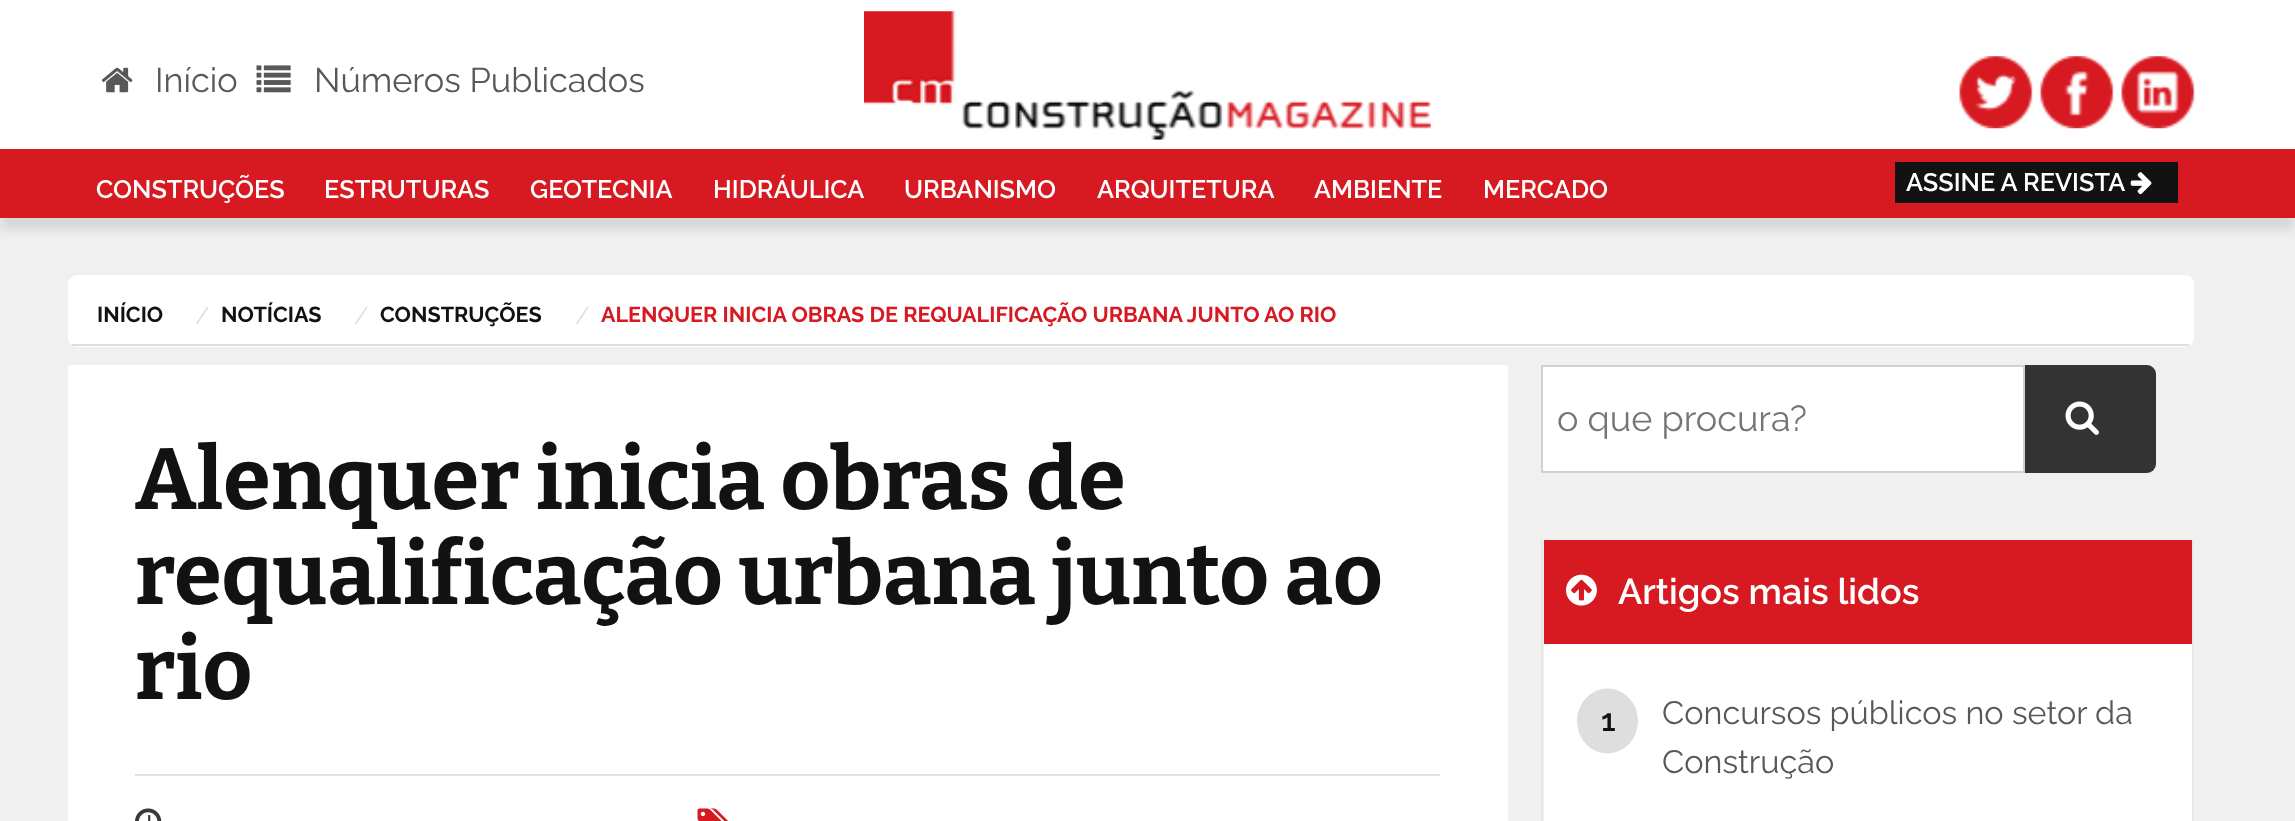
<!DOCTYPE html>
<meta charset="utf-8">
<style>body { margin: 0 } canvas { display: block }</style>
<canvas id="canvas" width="2295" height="821"></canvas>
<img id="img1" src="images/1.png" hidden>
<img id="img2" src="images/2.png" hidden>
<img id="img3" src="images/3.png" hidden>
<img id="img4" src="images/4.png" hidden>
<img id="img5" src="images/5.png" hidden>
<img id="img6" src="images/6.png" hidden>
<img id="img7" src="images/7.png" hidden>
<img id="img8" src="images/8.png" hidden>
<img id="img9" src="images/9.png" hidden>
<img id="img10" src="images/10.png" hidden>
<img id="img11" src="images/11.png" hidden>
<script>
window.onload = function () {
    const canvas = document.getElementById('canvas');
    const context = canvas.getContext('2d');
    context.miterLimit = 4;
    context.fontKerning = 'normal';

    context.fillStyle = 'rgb(240, 240, 240)';
    context.fillRect(0, 0, 2295, 821);
    context.fillStyle = 'rgb(255, 255, 255)';
    context.fillRect(0, 0, 2295, 149);
    context.drawImage(document.getElementById('img1'), 101, 67, 32, 26);
    context.drawImage(document.getElementById('img2'), 256, 65, 35, 28);
    context.drawImage(document.getElementById('img3'), 864, 11, 567, 129);
    context.drawImage(document.getElementById('img4'), 1959, 56, 74, 73);
    context.drawImage(document.getElementById('img5'), 2040, 56, 74, 73);
    context.drawImage(document.getElementById('img6'), 2121, 56, 74, 73);
    context.fillStyle = 'rgba(0, 0, 0, 0.1)';
    context.filter = 'blur(5.5px)';
    context.beginPath();
    context.rect(0, 160, 2295, 70);
    context.fill();
    context.filter = 'none';
    context.fillStyle = 'rgb(215, 25, 33)';
    context.fillRect(0, 149, 2295, 69);
    context.fillStyle = 'rgb(18, 18, 18)';
    context.fillRect(1895, 162, 283, 41);
    context.drawImage(document.getElementById('img7'), 2130, 172, 22, 23);
    context.fillStyle = 'rgb(255, 255, 255)';
    context.beginPath();
    context.roundRect(68, 275, 2126, 72, 9);
    context.fill();
    context.fillStyle = 'rgb(222, 222, 222)';
    context.fillRect(72, 344, 2117, 2);
    context.fillStyle = 'rgb(255, 255, 255)';
    context.fillRect(68, 365, 1440, 456);
    context.fillStyle = 'rgb(223, 224, 227)';
    context.fillRect(135, 774, 1305, 2);
    context.drawImage(document.getElementById('img8'), 135, 808, 27, 13);
    context.drawImage(document.getElementById('img9'), 697, 808, 31, 13);
    context.fillStyle = 'rgb(255, 255, 255)';
    context.beginPath();
    context.rect(1542, 366, 482, 106);
    context.fill();
    context.strokeStyle = 'rgb(209, 209, 209)';
    context.lineWidth = 2;
    context.stroke();
    context.fillStyle = 'rgb(51, 51, 51)';
    context.beginPath();
    context.roundRect(2025, 365, 131, 108, [0, 9, 9, 0]);
    context.fill();
    context.drawImage(document.getElementById('img10'), 2065, 401, 34, 34);
    context.fillStyle = 'rgb(255, 255, 255)';
    context.fillRect(1544, 644, 648, 177);
    context.fillStyle = 'rgb(231, 231, 231)';
    context.fillRect(2192, 540, 2, 281);
    context.fillRect(1541, 540, 2, 281);
    context.fillStyle = 'rgb(215, 25, 33)';
    context.fillRect(1544, 540, 648, 104);
    context.drawImage(document.getElementById('img11'), 1566, 574, 31, 32);
    context.fillStyle = 'rgb(222, 222, 222)';
    context.beginPath();
    context.ellipse(1607.5, 721, 30.5, 32.5, 0, 0, 2 * Math.PI);
    context.fill();
    context.font = '34.25px Raleway';
    context.fillStyle = 'rgb(88, 88, 90)';
    context.fillText('Início', 155, 92);
    context.fillText('Números Publicados', 314, 92);
    context.font = '600 25.25px Raleway';
    context.fillStyle = 'rgb(255, 255, 255)';
    context.fillText('CONSTRUÇÕES', 96, 198);
    context.fillText('ESTRUTURAS', 324, 198);
    context.fillText('GEOTECNIA', 530, 198);
    context.fillText('HIDRÁULICA', 713, 198);
    context.fillText('URBANISMO', 904, 198);
    context.fillText('ARQUITETURA', 1097, 198);
    context.fillText('AMBIENTE', 1314, 198);
    context.fillText('MERCADO', 1483, 198);
    context.fillText('ASSINE A REVISTA', 1906, 191);
    context.font = 'bold 21.6px Raleway';
    context.fillStyle = 'rgb(18, 18, 18)';
    context.fillText('INÍCIO', 97, 322);
    context.font = '24px Raleway';
    context.fillStyle = 'rgb(222, 222, 222)';
    context.fillText('/', 195, 324);
    context.font = 'bold 21.6px Raleway';
    context.fillStyle = 'rgb(18, 18, 18)';
    context.fillText('NOTÍCIAS', 221, 322);
    context.font = '24px Raleway';
    context.fillStyle = 'rgb(222, 222, 222)';
    context.fillText('/', 354, 324);
    context.font = 'bold 21.6px Raleway';
    context.fillStyle = 'rgb(18, 18, 18)';
    context.fillText('CONSTRUÇÕES', 380, 322);
    context.font = '24px Raleway';
    context.fillStyle = 'rgb(222, 222, 222)';
    context.fillText('/', 575, 324);
    context.font = 'bold 21.6px Raleway';
    context.fillStyle = 'rgb(215, 25, 33)';
    context.fillText('ALENQUER INICIA OBRAS DE REQUALIFICAÇÃO URBANA JUNTO AO RIO', 601, 322);
    context.font = 'bold 86.4px Bitter';
    context.fillStyle = 'rgb(18, 18, 18)';
    context.fillText('Alenquer inicia obras de', 135, 509);
    context.fillText('requalificação urbana junto ao', 135, 604);
    context.fillText('rio', 135, 699);
    context.font = '36px Raleway';
    context.fillStyle = 'rgb(117, 117, 117)';
    context.fillText('o que procura?', 1557, 431);
    context.font = '600 36px Raleway';
    context.fillStyle = 'rgb(255, 255, 255)';
    context.fillText('Artigos mais lidos', 1618, 604);
    context.font = '600 31px Raleway';
    context.fillStyle = 'rgb(18, 18, 18)';
    context.fillText('1', 1601, 731);
    context.font = '32.4px Raleway';
    context.fillStyle = 'rgb(88, 88, 90)';
    context.fillText('Concursos públicos no setor da', 1662, 724);
    context.fillText('Construção', 1662, 773);
};
</script>
